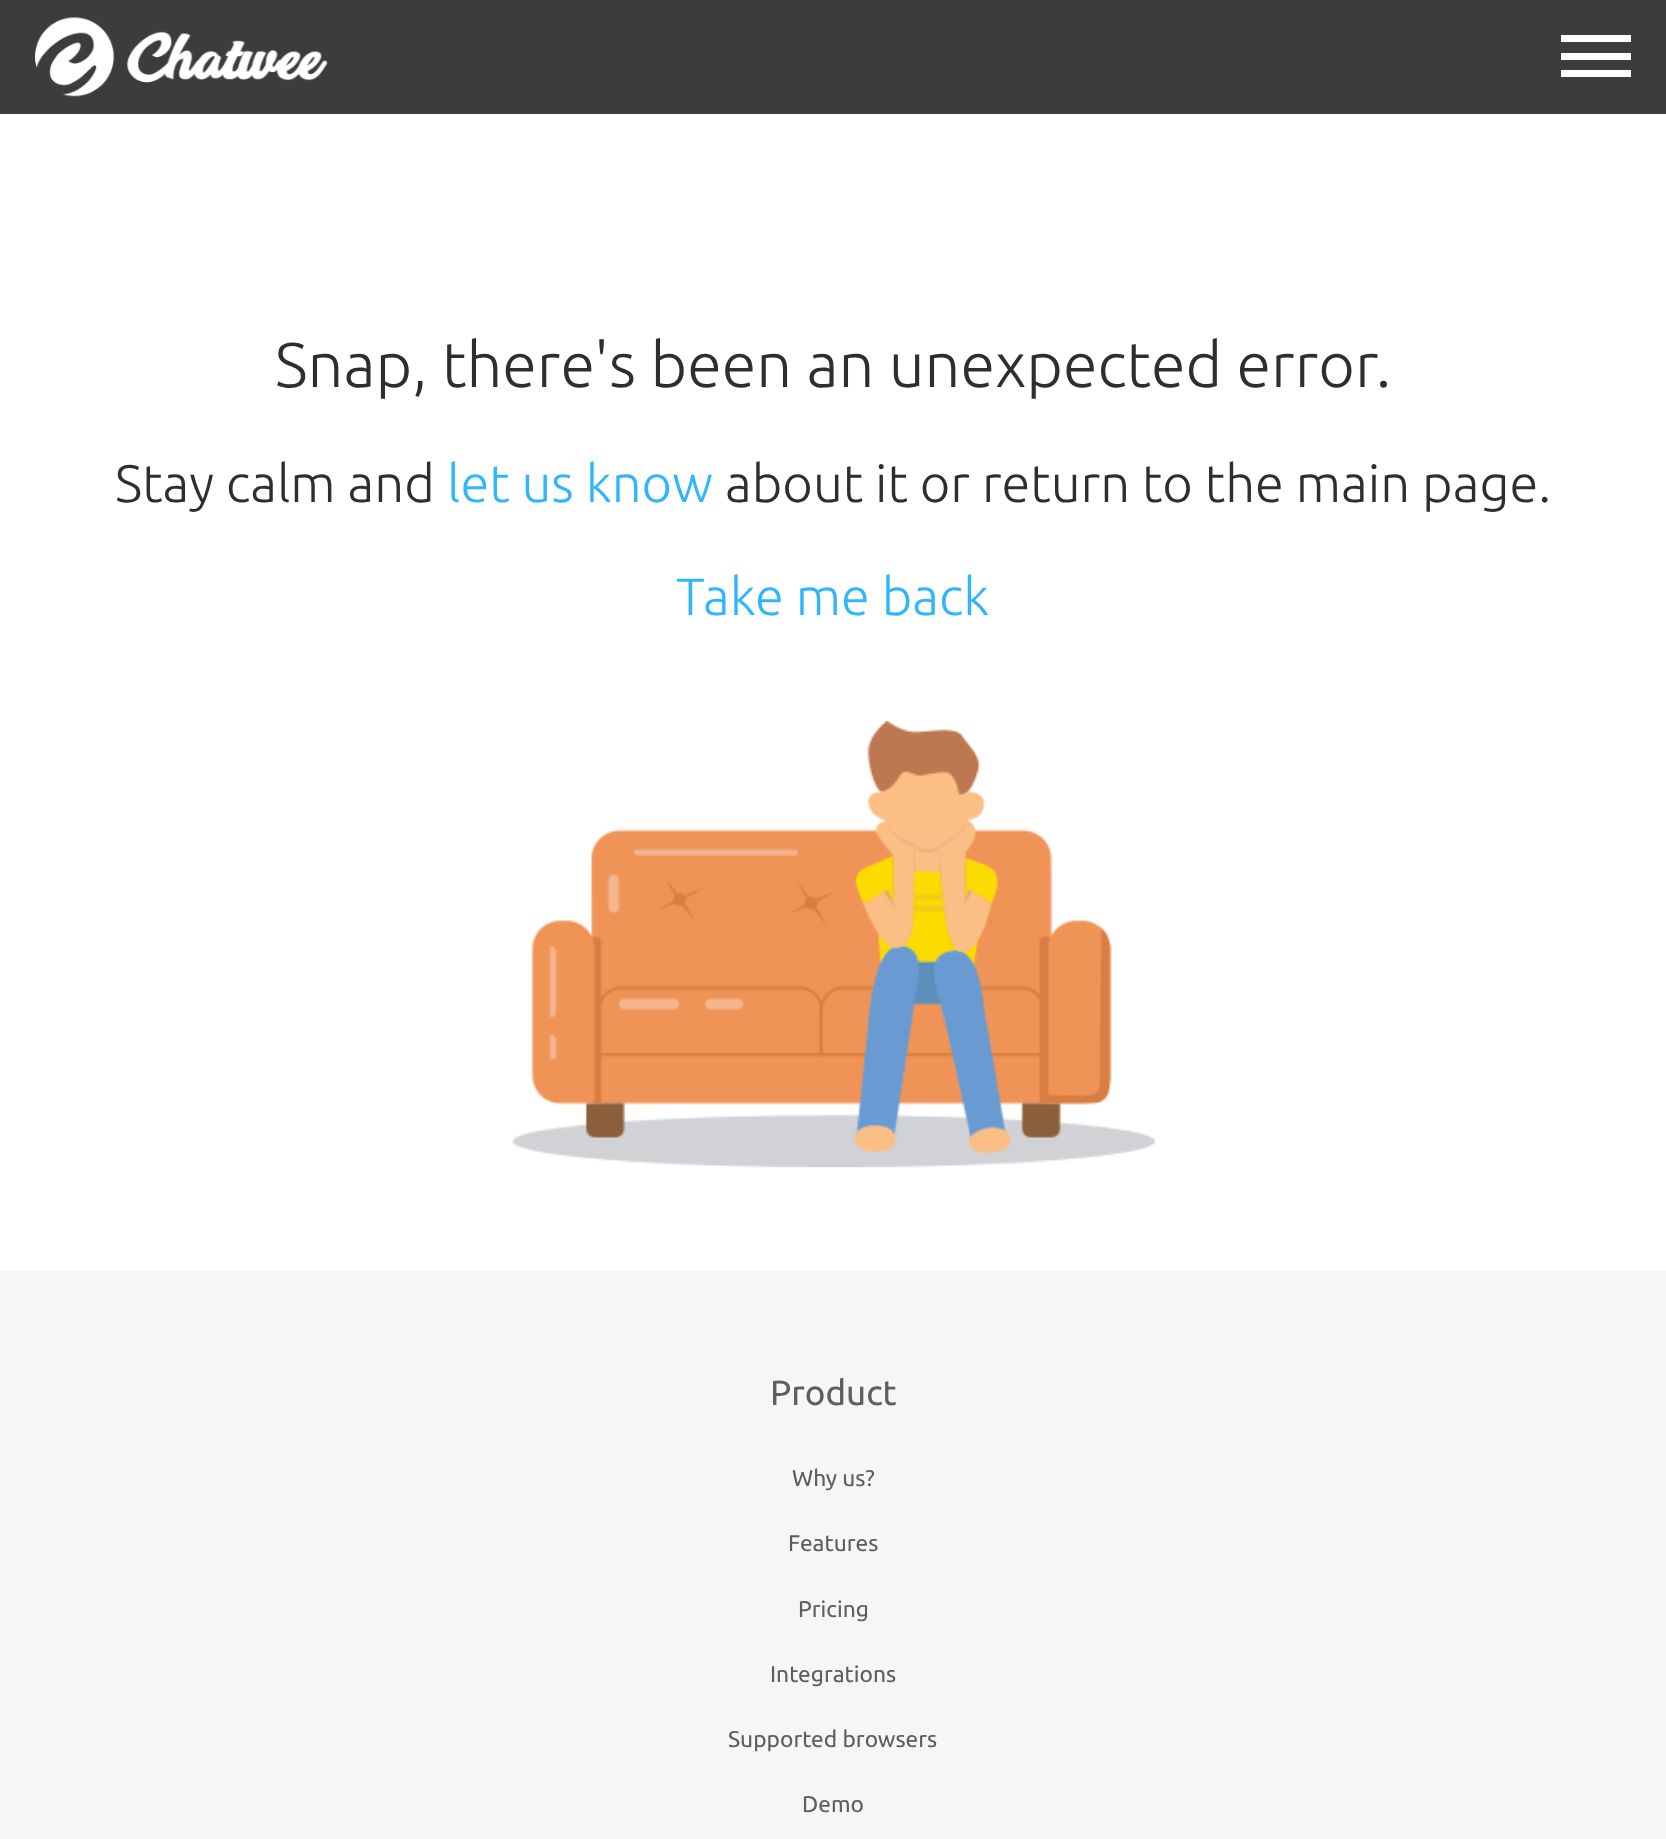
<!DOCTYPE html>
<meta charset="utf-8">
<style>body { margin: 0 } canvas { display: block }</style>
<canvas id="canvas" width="1666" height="1839"></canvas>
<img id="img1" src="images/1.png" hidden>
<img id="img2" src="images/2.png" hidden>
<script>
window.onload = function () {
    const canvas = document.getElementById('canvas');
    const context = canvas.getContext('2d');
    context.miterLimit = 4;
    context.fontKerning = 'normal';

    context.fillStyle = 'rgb(255, 255, 255)';
    context.fillRect(0, 0, 1666, 1839);
    context.fillStyle = 'rgb(60, 60, 60)';
    context.fillRect(0, 0, 1666, 114);
    context.drawImage(document.getElementById('img1'), 35, 17, 293, 80);
    context.fillStyle = 'rgb(255, 255, 255)';
    context.fillRect(1561, 35, 70, 7);
    context.fillRect(1561, 53, 70, 7);
    context.fillRect(1561, 70, 70, 7);
    context.drawImage(document.getElementById('img2'), 512, 721, 643, 447);
    context.fillStyle = 'rgb(246, 246, 246)';
    context.fillRect(0, 1271, 1666, 568);
    context.font = '300 63px Ubuntu';
    context.fillStyle = 'rgb(46, 46, 46)';
    context.fillText('Snap, there\'s been an unexpected error.', 275, 387);
    context.font = '300 52.5px Ubuntu';
    context.fillText('Stay calm and', 115, 502);
    context.fillStyle = 'rgb(49, 182, 254)';
    context.fillText('let us know', 447, 502);
    context.fillStyle = 'rgb(46, 46, 46)';
    context.fillText('about it or return to the main page.', 725, 502);
    context.fillStyle = 'rgb(49, 182, 254)';
    context.fillText('Take me back', 676, 615);
    context.font = '35px Ubuntu';
    context.fillStyle = 'rgb(94, 94, 94)';
    context.fillText('Product', 770, 1405);
    context.font = '22.75px Ubuntu';
    context.fillText('Why us?', 792, 1486);
    context.fillText('Features', 788, 1551);
    context.fillText('Pricing', 798, 1617);
    context.fillText('Integrations', 770, 1682);
    context.fillText('Supported browsers', 728, 1747);
    context.fillText('Demo', 802, 1812);
};
</script>
